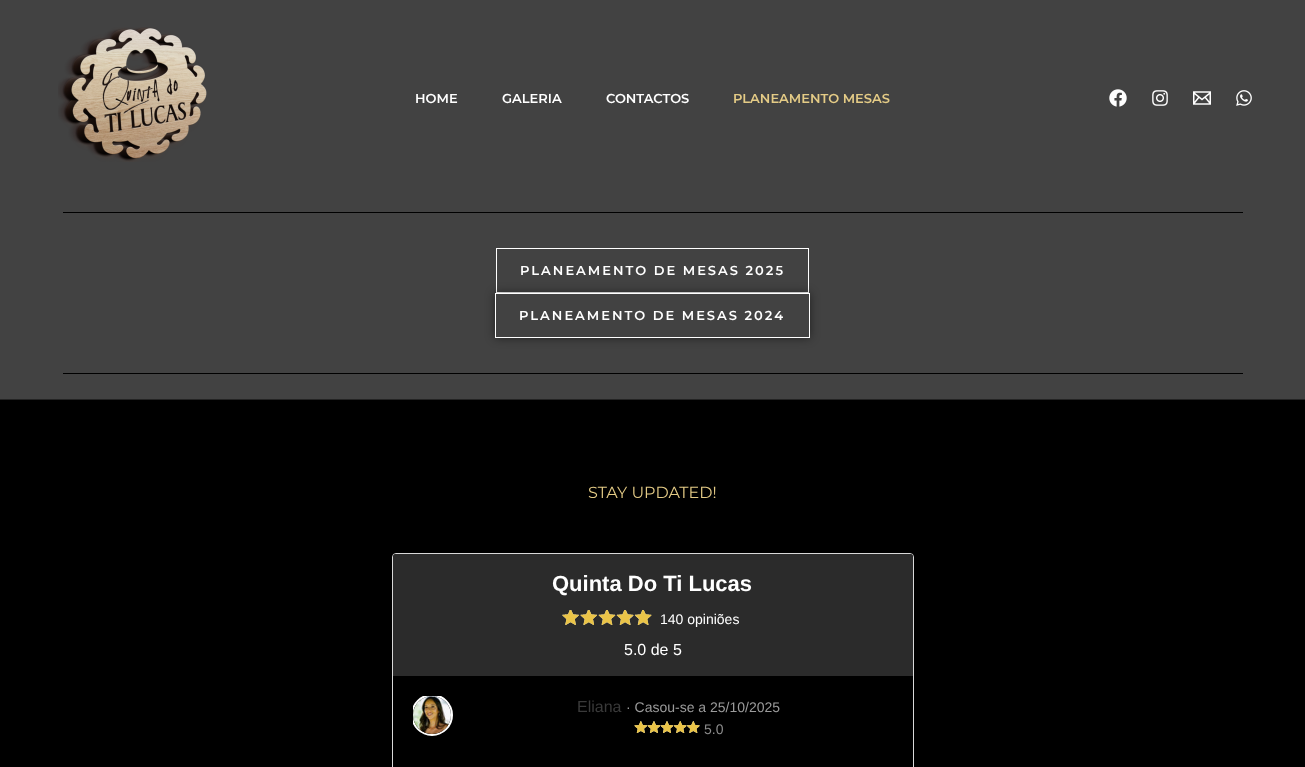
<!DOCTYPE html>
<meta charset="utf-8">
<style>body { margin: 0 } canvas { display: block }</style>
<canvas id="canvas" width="1305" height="767"></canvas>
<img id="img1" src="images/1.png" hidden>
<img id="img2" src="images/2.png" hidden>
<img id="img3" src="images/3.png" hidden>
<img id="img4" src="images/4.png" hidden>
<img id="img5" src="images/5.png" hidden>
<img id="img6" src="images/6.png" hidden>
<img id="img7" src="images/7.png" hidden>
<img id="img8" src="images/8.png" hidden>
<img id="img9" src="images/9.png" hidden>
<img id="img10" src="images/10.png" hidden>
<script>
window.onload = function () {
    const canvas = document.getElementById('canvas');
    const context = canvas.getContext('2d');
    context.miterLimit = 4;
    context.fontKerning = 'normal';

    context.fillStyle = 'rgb(66, 66, 66)';
    context.fillRect(0, 0, 1305, 767);
    context.drawImage(document.getElementById('img1'), 58, 27, 149, 135);
    context.drawImage(document.getElementById('img2'), 1109, 89, 18, 18);
    context.drawImage(document.getElementById('img3'), 1152, 90, 16, 16);
    context.drawImage(document.getElementById('img4'), 1193, 91, 18, 14);
    context.drawImage(document.getElementById('img5'), 1236, 90, 16, 16);
    context.fillStyle = 'rgb(0, 0, 0)';
    context.fillRect(63, 212, 1180, 1);
    context.strokeStyle = 'rgb(255, 255, 255)';
    context.strokeRect(496.5, 248.5, 312, 44);
    context.save();
    context.beginPath();
    context.moveTo(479, 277);
    context.lineTo(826, 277);
    context.lineTo(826, 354);
    context.lineTo(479, 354);
    context.closePath();
    context.moveTo(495, 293);
    context.lineTo(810, 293);
    context.lineTo(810, 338);
    context.lineTo(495, 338);
    context.closePath();
    context.clip('evenodd');
    context.fillStyle = 'rgba(0, 0, 0, 0.5)';
    context.filter = 'blur(5px)';
    context.beginPath();
    context.rect(495, 293, 315, 45);
    context.fill();
    context.filter = 'none';
    context.restore();
    context.strokeRect(495.5, 293.5, 314, 44);
    context.fillRect(63, 373, 1180, 1);
    context.fillRect(0, 400, 1305, 367);
    context.fillStyle = 'rgb(36, 36, 36)';
    context.fillRect(0, 399, 1305, 1);
    context.beginPath();
    context.roundRect(392.5, 553.5, 521, 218, 3.5);
    context.strokeStyle = 'rgb(217, 217, 217)';
    context.stroke();
    context.fillStyle = 'rgb(43, 43, 43)';
    context.beginPath();
    context.roundRect(393, 554, 520, 122, [3, 3, 0, 0]);
    context.fill();
    context.drawImage(document.getElementById('img6'), 562, 610, 90, 15);
    context.drawImage(document.getElementById('img7'), 562, 610, 90, 15);
    context.save();
    context.beginPath();
    context.rect(413, 696, 480, 44);
    context.clip();
    context.beginPath();
    context.arc(432, 715, 20, 0, 2 * Math.PI);
    context.strokeStyle = 'rgb(255, 255, 255)';
    context.lineWidth = 2;
    context.stroke();
    context.restore();
    context.drawImage(document.getElementById('img8'), 413, 696, 38, 38);
    context.drawImage(document.getElementById('img9'), 634, 721, 66, 12);
    context.drawImage(document.getElementById('img10'), 634, 721, 66, 12);
    context.font = '600 13px Montserrat';
    context.fillStyle = 'rgb(255, 255, 255)';
    context.fillText('HOME', 415, 103);
    context.fillText('GALERIA', 502, 103);
    context.fillText('CONTACTOS', 606, 103);
    context.fillStyle = 'rgb(228, 203, 134)';
    context.fillText('PLANEAMENTO MESAS', 733, 103);
    context.letterSpacing = '2px';
    context.fillStyle = 'rgb(255, 255, 255)';
    context.fillText('PLANEAMENTO DE MESAS 2025', 520, 275);
    context.fillText('PLANEAMENTO DE MESAS 2024', 519, 320);
    context.letterSpacing = '0px';
    context.font = '16px Montserrat';
    context.fillStyle = 'rgb(228, 203, 134)';
    context.fillText('STAY UPDATED!', 588, 498);
    context.font = 'bold 22px Liberation Sans';
    context.fillStyle = 'rgb(255, 255, 255)';
    context.fillText('Quinta Do Ti Lucas', 552, 591);
    context.font = '14px Liberation Sans';
    context.fillText('140 opiniões', 660, 624);
    context.font = '16px Liberation Sans';
    context.fillText('5.0 de 5', 624, 655);
    context.fillStyle = 'rgb(58, 58, 58)';
    context.fillText('Eliana', 577, 712);
    context.font = '14px Liberation Sans';
    context.fillStyle = 'rgb(155, 155, 155)';
    context.fillText('· Casou-se a 25/10/2025', 626, 712);
    context.fillStyle = 'rgb(140, 140, 140)';
    context.fillText('5.0', 704, 734);
};
</script>
